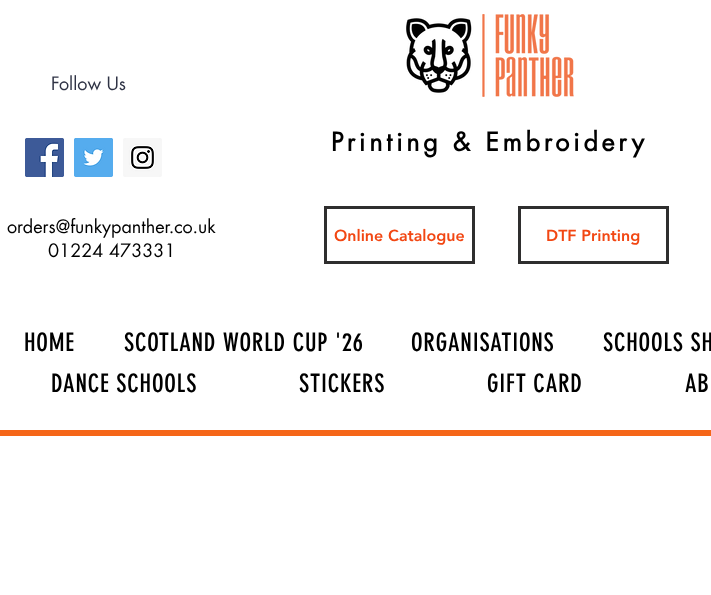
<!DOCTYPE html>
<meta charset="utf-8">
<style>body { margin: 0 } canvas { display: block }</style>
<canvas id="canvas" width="711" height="595"></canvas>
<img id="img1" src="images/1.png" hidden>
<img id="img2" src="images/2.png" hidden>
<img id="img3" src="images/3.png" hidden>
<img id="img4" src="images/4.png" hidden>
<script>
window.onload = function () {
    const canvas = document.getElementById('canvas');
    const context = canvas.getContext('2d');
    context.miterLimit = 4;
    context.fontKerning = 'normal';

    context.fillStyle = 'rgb(255, 255, 255)';
    context.fillRect(0, 0, 711, 595);
    context.drawImage(document.getElementById('img1'), 406, 14, 168, 83);
    context.drawImage(document.getElementById('img2'), 25, 138, 39, 39);
    context.drawImage(document.getElementById('img3'), 74, 138, 39, 39);
    context.drawImage(document.getElementById('img4'), 123, 138, 39, 39);
    context.strokeStyle = 'rgb(47, 46, 46)';
    context.lineWidth = 3;
    context.strokeRect(325.5, 207.5, 148, 55);
    context.strokeRect(519.5, 207.5, 148, 55);
    context.fillStyle = 'rgb(245, 102, 24)';
    context.fillRect(0, 430, 711, 6);
    context.font = '18px futura';
    context.fillStyle = 'rgb(47, 51, 69)';
    context.fillText('Follow Us', 51, 90);
    context.letterSpacing = '3.75px';
    context.font = 'bold 25px futura';
    context.fillStyle = 'rgb(0, 0, 0)';
    context.fillText('Printing & Embroidery', 331, 151);
    context.letterSpacing = '0px';
    context.font = '18px futura';
    context.fillText('orders@funkypanther.co.uk', 7, 233);
    context.fillText('01224 473331', 48, 257);
    context.font = '900 16px "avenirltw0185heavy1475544"';
    context.fillStyle = 'rgb(242, 71, 19)';
    context.fillText('Online Catalogue', 334, 241);
    context.fillText('DTF Printing', 546, 241);
    context.letterSpacing = '0.75px';
    context.font = '25px "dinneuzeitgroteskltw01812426"';
    context.fillStyle = 'rgb(0, 0, 0)';
    context.fillText('HOME', 24, 351);
    context.fillText('SCOTLAND WORLD CUP \'26', 124, 351);
    context.fillText('ORGANISATIONS', 411, 351);
    context.fillText('SCHOOLS SH', 603, 351);
    context.fillText('DANCE SCHOOLS', 51, 392);
    context.fillText('STICKERS', 299, 392);
    context.fillText('GIFT CARD', 487, 392);
    context.fillText('AB', 685, 392);
};
</script>
